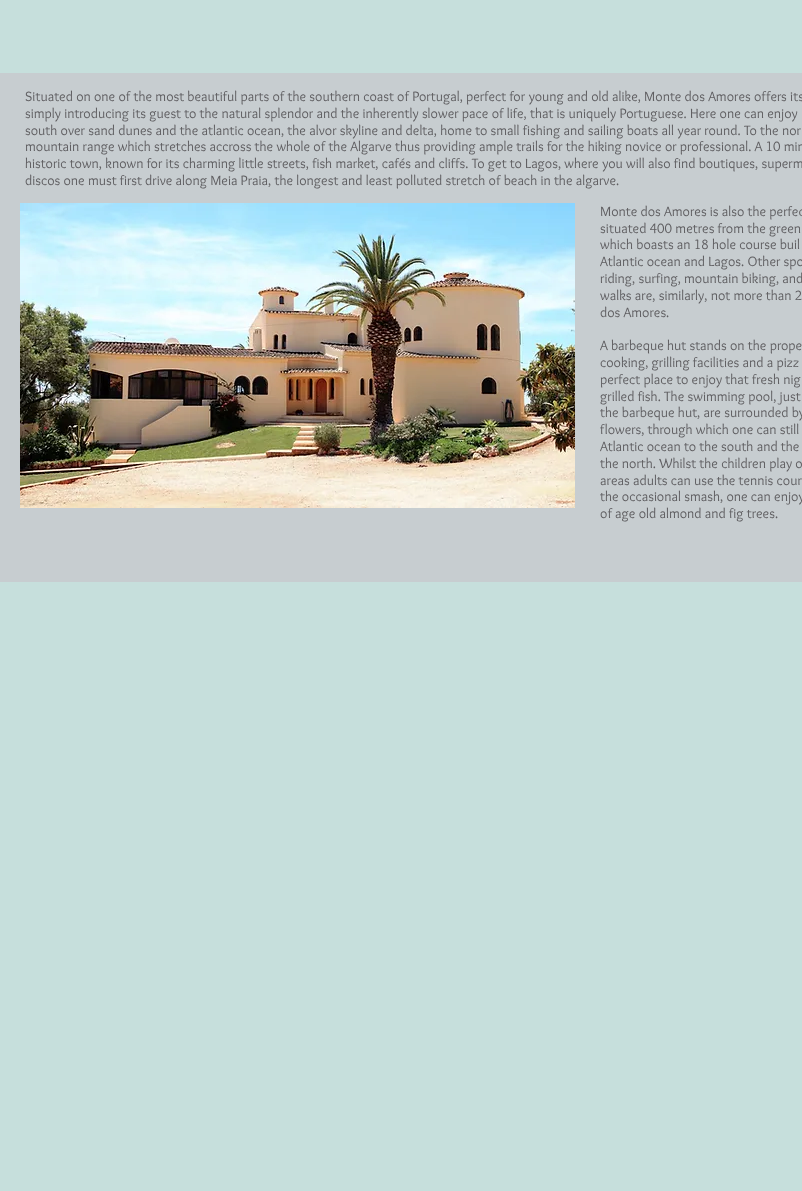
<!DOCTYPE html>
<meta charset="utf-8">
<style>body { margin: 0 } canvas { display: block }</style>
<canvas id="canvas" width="802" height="1191"></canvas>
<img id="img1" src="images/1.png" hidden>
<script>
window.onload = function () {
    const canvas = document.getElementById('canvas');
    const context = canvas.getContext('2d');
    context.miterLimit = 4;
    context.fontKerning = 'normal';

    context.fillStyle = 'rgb(198, 223, 220)';
    context.fillRect(0, 0, 802, 1191);
    context.fillStyle = 'rgb(199, 205, 208)';
    context.fillRect(0, 73, 802, 509);
    context.drawImage(document.getElementById('img1'), 20, 203, 555, 305);
    context.font = '14px Overlock';
    context.fillStyle = 'rgb(95, 94, 97)';
    context.fillText('Situated on one of the most beautiful parts of the southern coast of Portugal, perfect for young and old alike, Monte dos Amores offers its', 25, 101);
    context.fillText('simply introducing its guest to the natural splendor and the inherently slower pace of life, that is uniquely Portuguese. Here one can enjoy', 25, 118);
    context.fillText('south over sand dunes and the atlantic ocean, the alvor skyline and delta, home to small fishing and sailing boats all year round. To the nor', 25, 135);
    context.fillText('mountain range which stretches accross the whole of the Algarve thus providing ample trails for the hiking novice or professional. A 10 min', 25, 151);
    context.fillText('historic town, known for its charming little streets, fish market, cafés and cliffs. To get to Lagos, where you will also find boutiques, superm', 25, 168);
    context.fillText('discos one must first drive along Meia Praia, the longest and least polluted stretch of beach in the algarve.', 25, 185);
    context.fillText('Monte dos Amores is also the perfec', 600, 216);
    context.fillText('situated 400 metres from the green', 600, 233);
    context.fillText('which boasts an 18 hole course buil', 600, 249);
    context.fillText('Atlantic ocean and Lagos. Other spo', 600, 266);
    context.fillText('riding, surfing, mountain biking, and', 600, 283);
    context.fillText('walks are, similarly, not more than 2', 600, 300);
    context.fillText('dos Amores.', 600, 317);
    context.fillText('A barbeque hut stands on the prope', 600, 350);
    context.fillText('cooking, grilling facilities and a pizz', 600, 367);
    context.fillText('perfect place to enjoy that fresh nig', 600, 384);
    context.fillText('grilled fish. The swimming pool, just', 600, 401);
    context.fillText('the barbeque hut, are surrounded by', 600, 417);
    context.fillText('flowers, through which one can still', 600, 434);
    context.fillText('Atlantic ocean to the south and the', 600, 451);
    context.fillText('the north. Whilst the children play o', 600, 468);
    context.fillText('areas adults can use the tennis cour', 600, 485);
    context.fillText('the occasional smash, one can enjoy', 600, 501);
    context.fillText('of age old almond and fig trees.', 600, 518);
};
</script>
